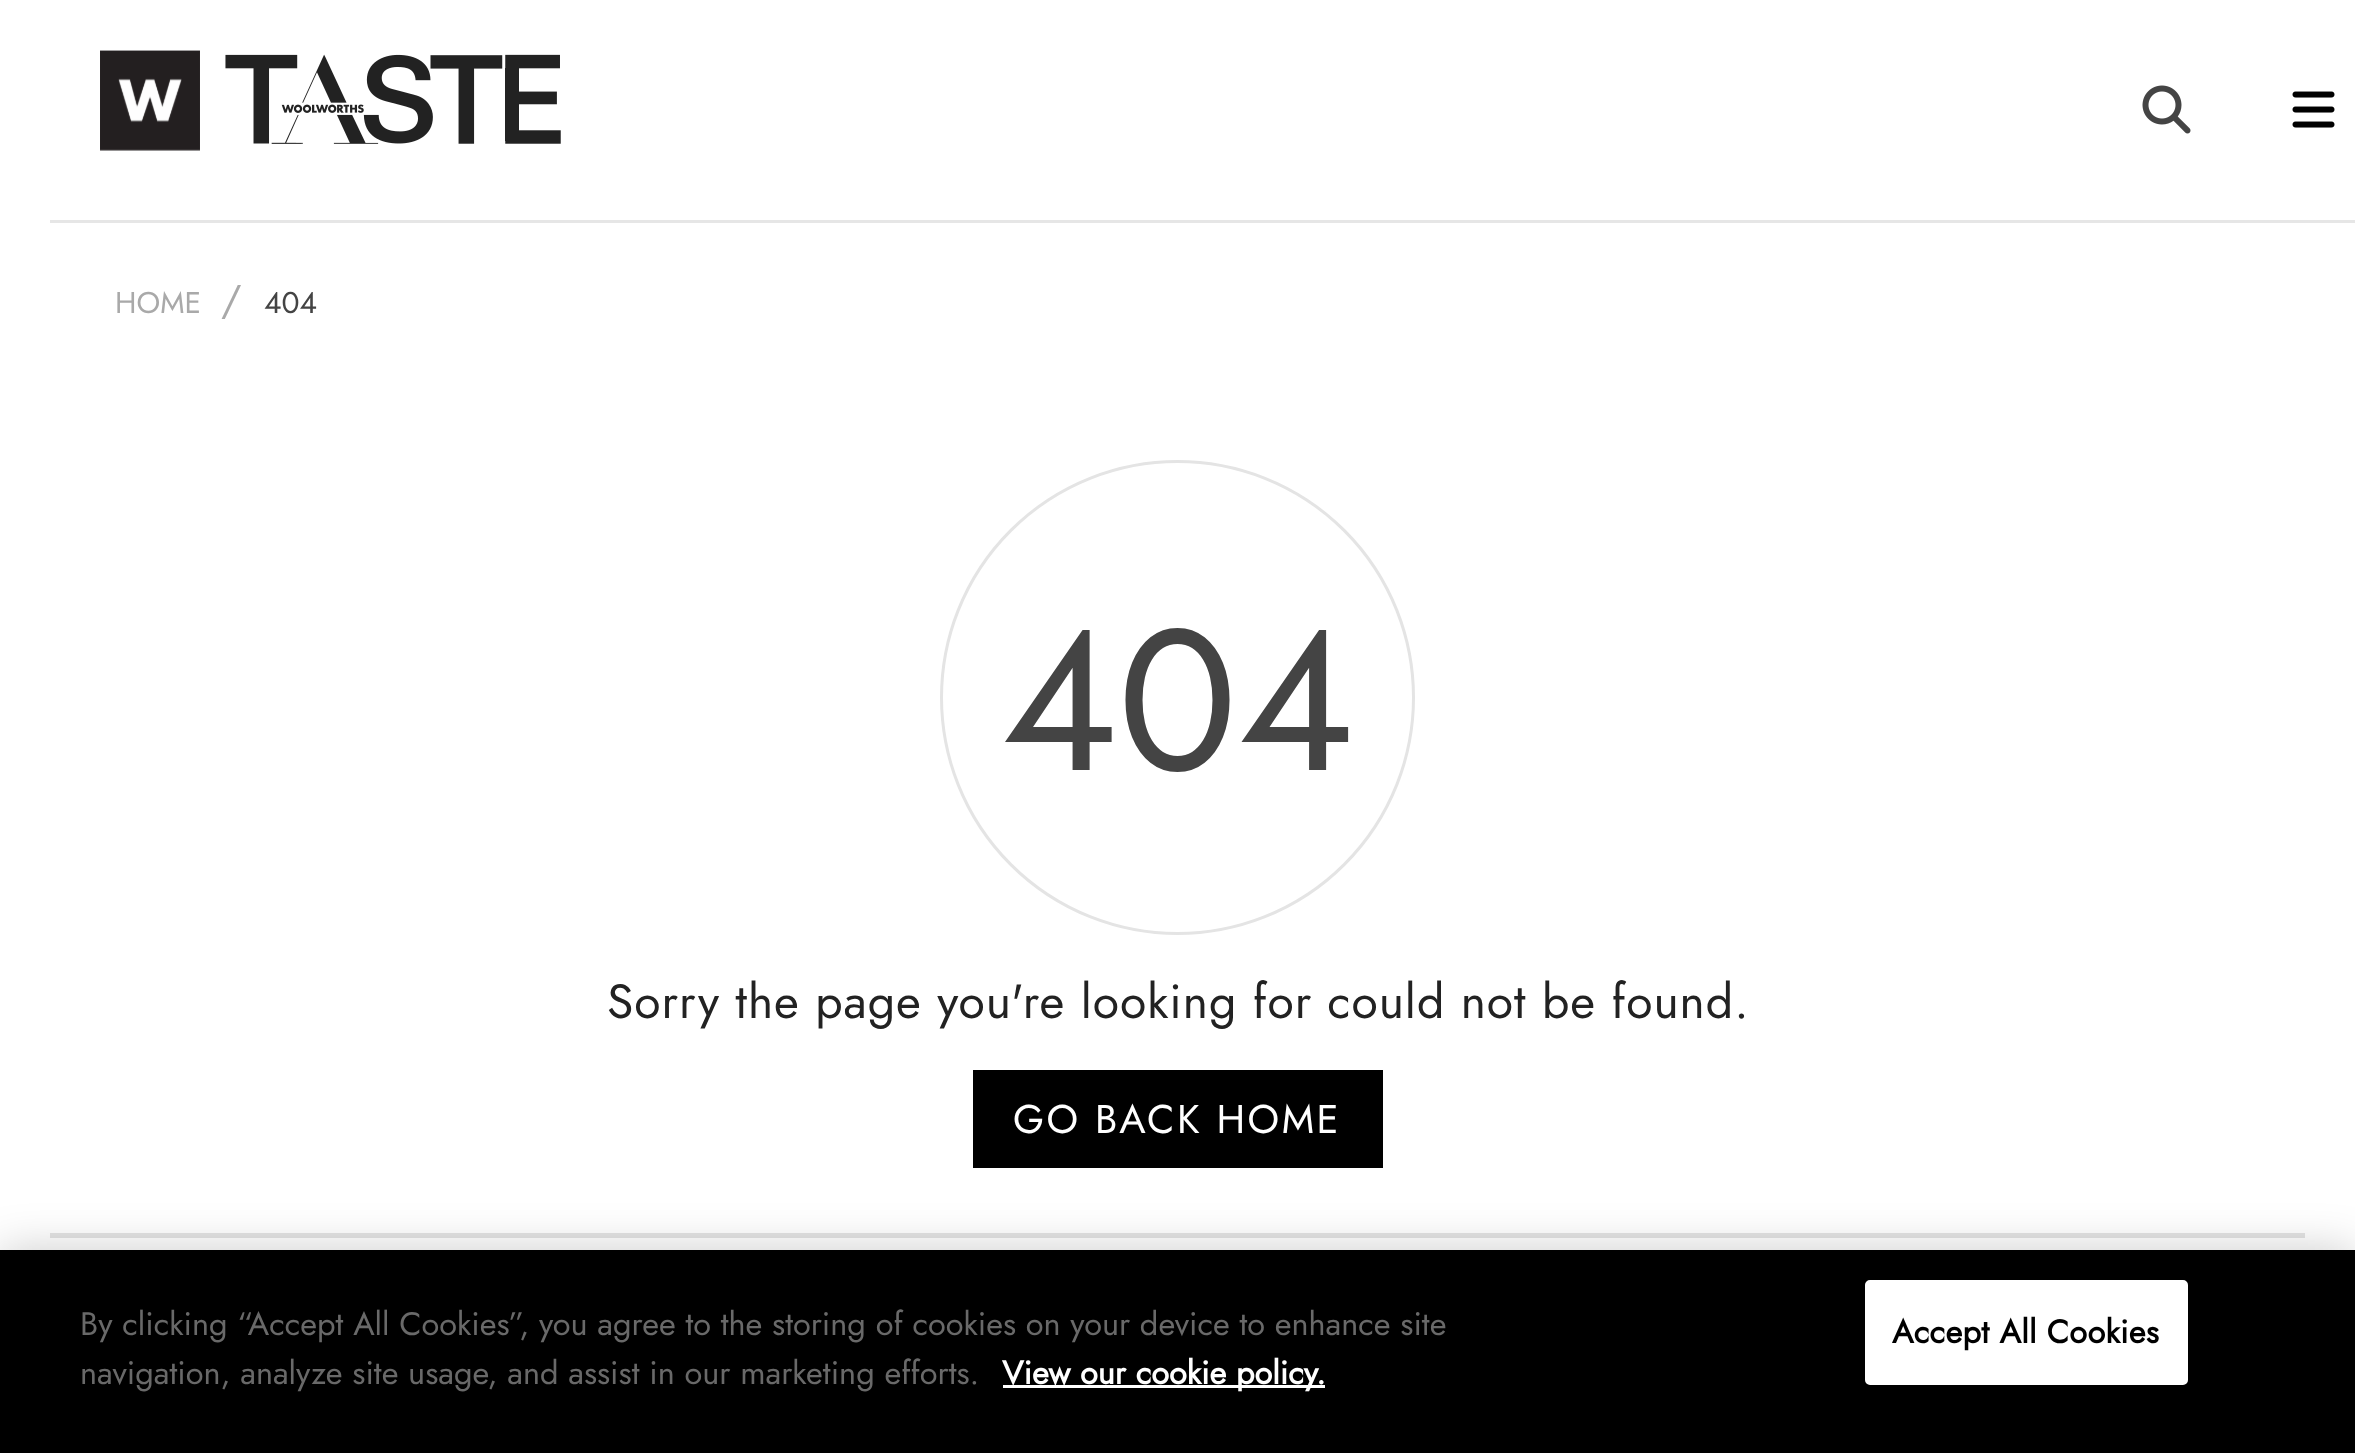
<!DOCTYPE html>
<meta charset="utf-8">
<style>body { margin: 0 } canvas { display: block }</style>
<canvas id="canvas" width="2355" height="1453"></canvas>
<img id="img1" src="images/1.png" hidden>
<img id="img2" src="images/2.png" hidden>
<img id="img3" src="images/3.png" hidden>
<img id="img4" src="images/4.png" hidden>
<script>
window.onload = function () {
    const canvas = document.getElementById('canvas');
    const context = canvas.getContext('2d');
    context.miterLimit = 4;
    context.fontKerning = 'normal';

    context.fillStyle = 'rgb(255, 255, 255)';
    context.fillRect(0, 0, 2355, 1453);
    context.fillStyle = 'rgb(230, 230, 230)';
    context.fillRect(50, 220, 2305, 3);
    context.drawImage(document.getElementById('img1'), 100, 50, 100, 101);
    context.drawImage(document.getElementById('img2'), 225, 54, 336, 90);
    context.drawImage(document.getElementById('img3'), 2142, 85, 49, 49);
    context.drawImage(document.getElementById('img4'), 2292, 91, 43, 37);
    context.fillStyle = 'rgb(228, 228, 228)';
    context.fillRect(50, 1233, 2255, 5);
    context.beginPath();
    context.arc(1177.5, 697.5, 236, 0, 2 * Math.PI);
    context.strokeStyle = 'rgb(228, 228, 228)';
    context.lineWidth = 3;
    context.stroke();
    context.fillStyle = 'rgb(0, 0, 0)';
    context.fillRect(973, 1070, 410, 98);
    context.fillStyle = 'rgba(0, 0, 0, 0.2)';
    context.filter = 'blur(22.5px)';
    context.beginPath();
    context.rect(0, 1250, 2355, 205);
    context.fill();
    context.filter = 'none';
    context.fillStyle = 'rgb(0, 0, 0)';
    context.fillRect(0, 1250, 2355, 203);
    context.fillStyle = 'rgb(255, 255, 255)';
    context.fillRect(1003, 1385, 322, 3);
    context.beginPath();
    context.roundRect(1866.5, 1281.5, 320, 102, 3.5);
    context.fill();
    context.strokeStyle = 'rgb(255, 255, 255)';
    context.stroke();
    context.font = '30px Jost';
    context.fillStyle = 'rgb(169, 169, 169)';
    context.fillText('HOME', 115, 313);
    context.font = '40px Jost';
    context.fillText('/', 221, 313);
    context.font = '30px Jost';
    context.fillStyle = 'rgb(68, 68, 68)';
    context.fillText('404', 264, 313);
    context.font = '200px Jost';
    context.fillText('404', 1001, 770);
    context.letterSpacing = '1px';
    context.font = '48px Jost';
    context.fillStyle = 'rgb(34, 34, 34)';
    context.fillText('Sorry the page you\'re looking for could not be found.', 607, 1018);
    context.letterSpacing = '2.5px';
    context.font = '40px Jost';
    context.fillStyle = 'rgb(255, 255, 255)';
    context.fillText('GO BACK HOME', 1013, 1133);
    context.letterSpacing = '0px';
    context.font = '32.5px Jost';
    context.fillStyle = 'rgb(105, 105, 105)';
    context.fillText('By clicking “Accept All Cookies”, you agree to the storing of cookies on your device to enhance site', 80, 1335);
    context.fillText('navigation, analyze site usage, and assist in our marketing efforts.', 80, 1384);
    context.font = 'bold 32.5px Jost';
    context.fillStyle = 'rgb(255, 255, 255)';
    context.fillText('View our cookie policy.', 1002, 1384);
    context.letterSpacing = '0.3px';
    context.fillStyle = 'rgb(0, 0, 0)';
    context.fillText('Accept All Cookies', 1892, 1343);
};
</script>
